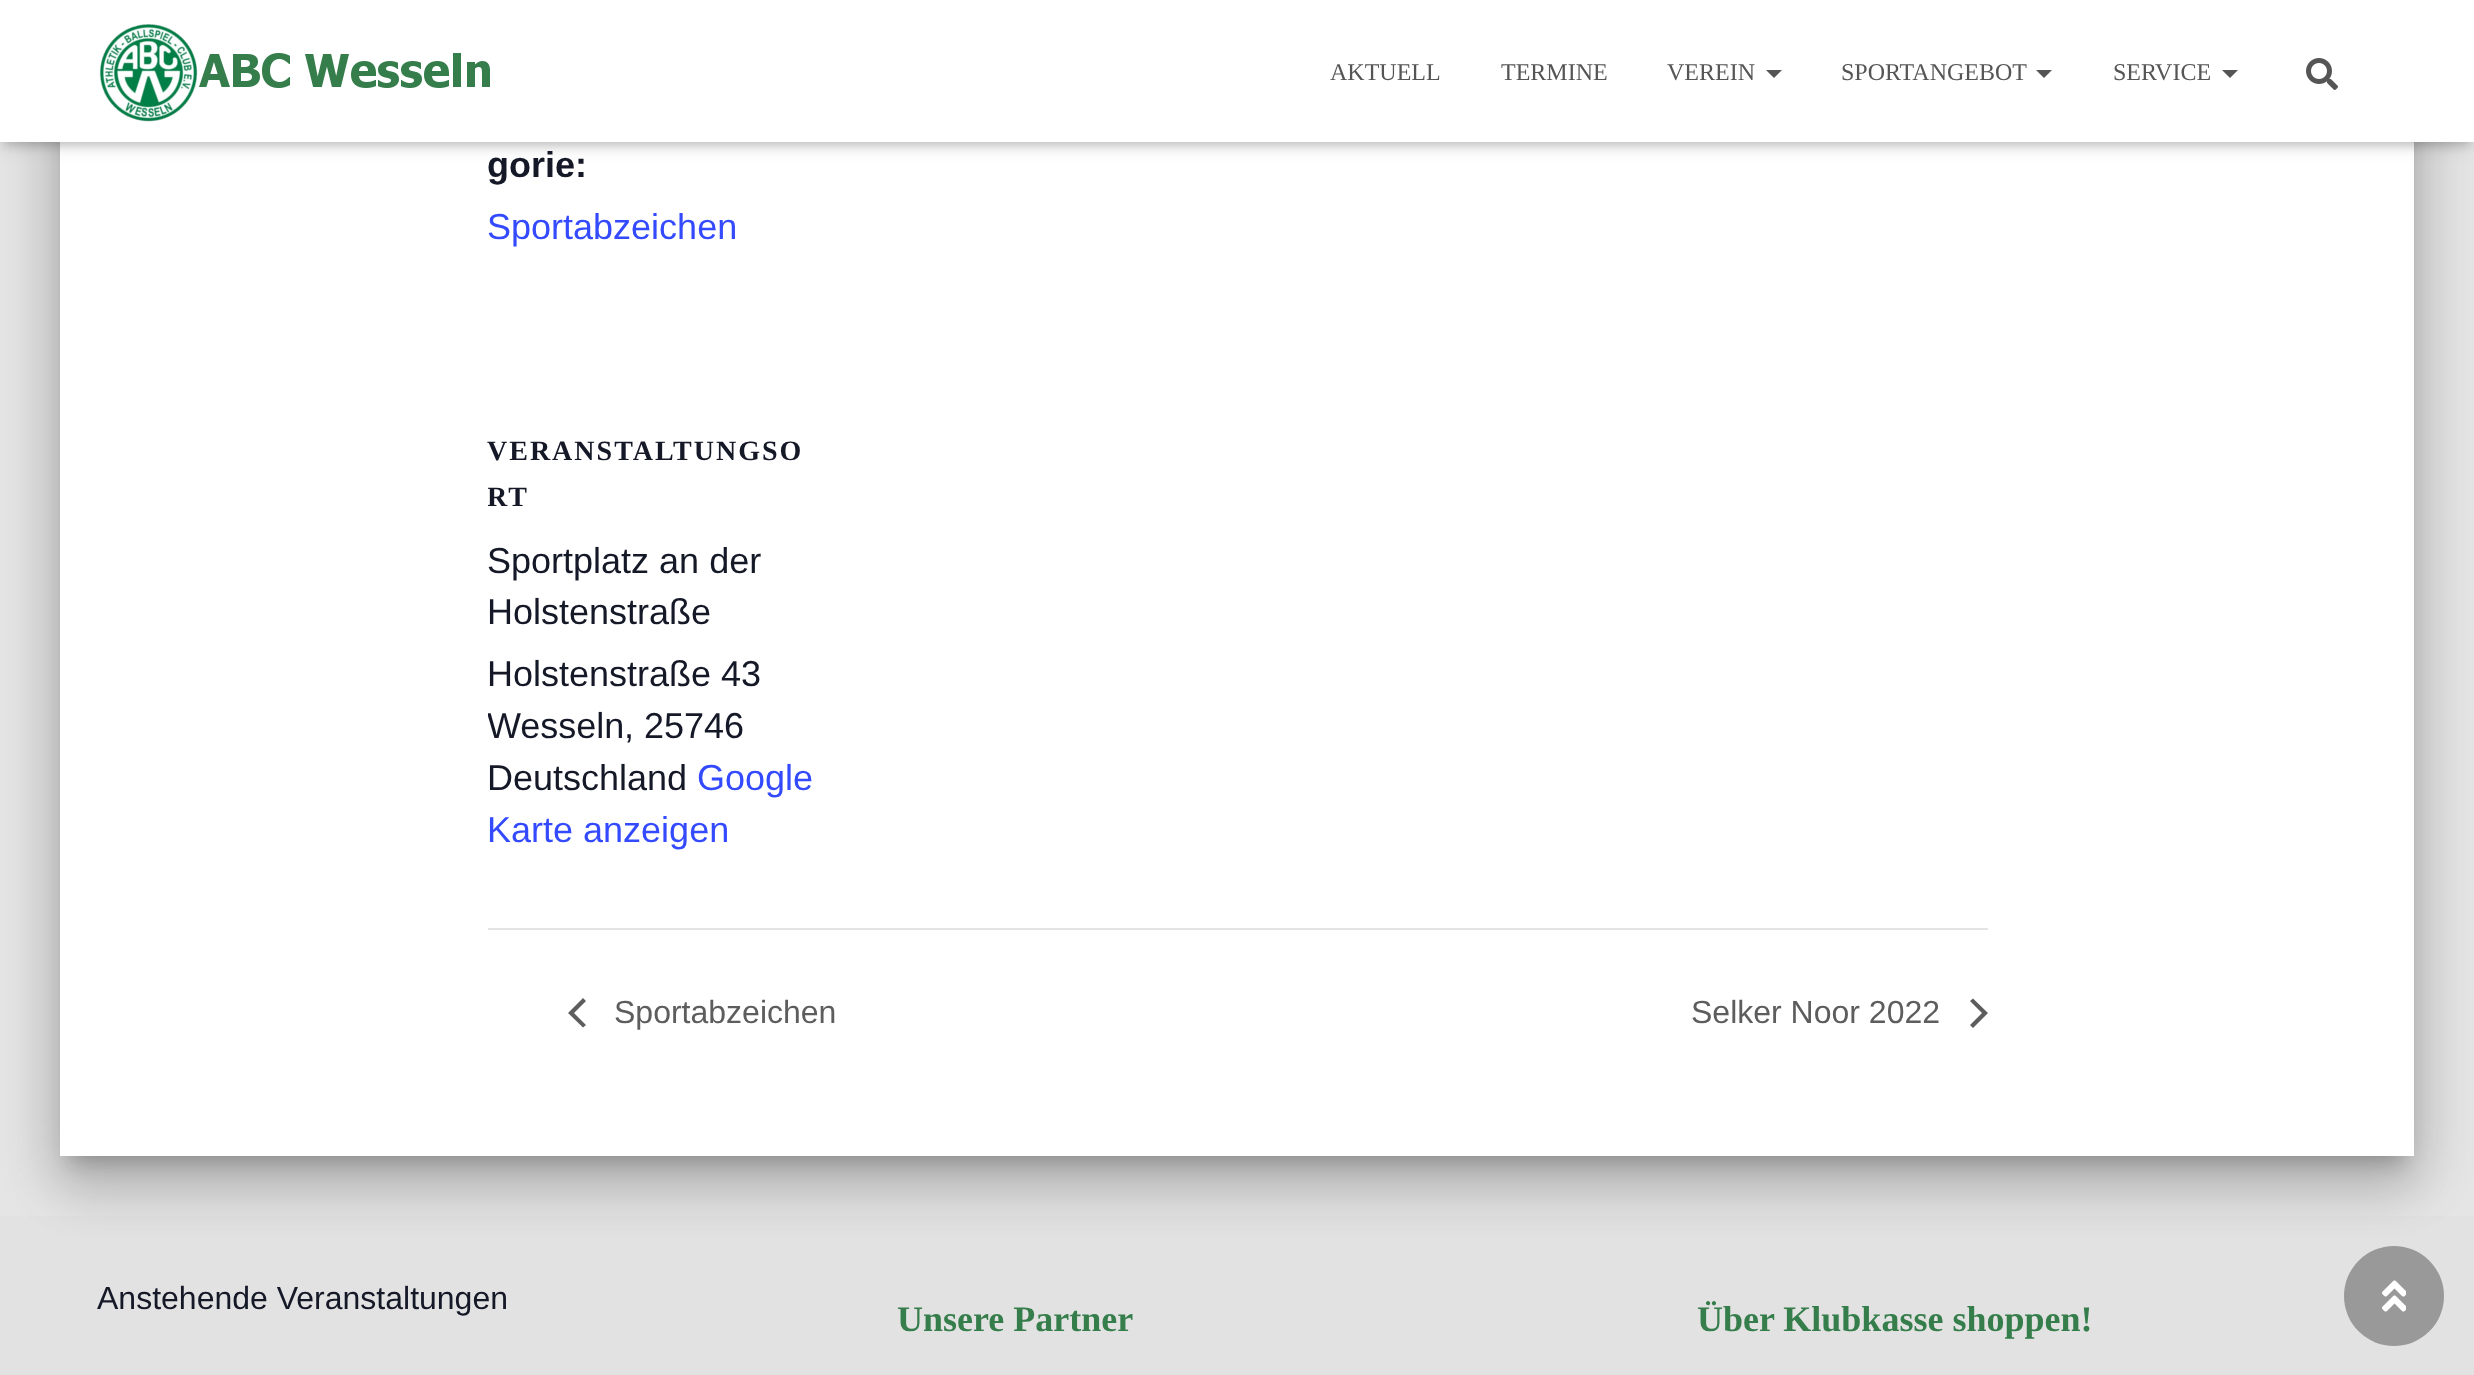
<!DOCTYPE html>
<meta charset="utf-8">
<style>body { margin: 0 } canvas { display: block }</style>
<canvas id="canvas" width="2474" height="1375"></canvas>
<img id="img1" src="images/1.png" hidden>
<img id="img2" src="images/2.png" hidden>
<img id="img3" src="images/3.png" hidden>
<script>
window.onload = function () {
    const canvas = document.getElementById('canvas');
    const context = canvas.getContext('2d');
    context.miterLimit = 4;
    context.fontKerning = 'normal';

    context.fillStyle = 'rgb(229, 229, 229)';
    context.fillRect(0, 0, 2474, 1375);
    context.fillStyle = 'rgba(0, 0, 0, 0.2)';
    context.filter = 'blur(10px)';
    context.beginPath();
    context.roundRect(70, -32, 2334, 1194, 2);
    context.fill();
    context.filter = 'none';
    context.fillStyle = 'rgb(226, 226, 226)';
    context.fillRect(0, 1216, 2474, 159);
    context.fillStyle = 'rgba(0, 0, 0, 0.12)';
    context.filter = 'blur(30px)';
    context.beginPath();
    context.roundRect(50, -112, 2374, 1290, 22);
    context.fill();
    context.filter = 'none';
    context.fillStyle = 'rgba(0, 0, 0, 0.14)';
    context.filter = 'blur(24px)';
    context.beginPath();
    context.roundRect(56, -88, 2362, 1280, 16);
    context.fill();
    context.filter = 'none';
    context.fillStyle = 'rgb(255, 255, 255)';
    context.fillRect(60, 142, 2354, 1014);
    context.fillStyle = 'rgba(0, 0, 0, 0.1)';
    context.filter = 'blur(5px)';
    context.beginPath();
    context.rect(4, 12, 2466, 134);
    context.fill();
    context.filter = 'none';
    context.fillStyle = 'rgba(0, 0, 0, 0.12)';
    context.filter = 'blur(10px)';
    context.beginPath();
    context.rect(0, 2, 2474, 142);
    context.fill();
    context.filter = 'none';
    context.fillStyle = 'rgba(0, 0, 0, 0.42)';
    context.filter = 'blur(10px)';
    context.beginPath();
    context.rect(12, 14, 2450, 118);
    context.fill();
    context.filter = 'none';
    context.fillStyle = 'rgb(255, 255, 255)';
    context.fillRect(0, 0, 2474, 142);
    context.drawImage(document.getElementById('img1'), 99, 23, 391, 99);
    context.fillStyle = 'rgb(85, 85, 85)';
    context.beginPath();
    context.moveTo(1766, 70);
    context.lineTo(1782, 70);
    context.lineTo(1774, 78);
    context.closePath();
    context.fill();
    context.beginPath();
    context.moveTo(2036, 70);
    context.lineTo(2052, 70);
    context.lineTo(2044, 78);
    context.closePath();
    context.fill();
    context.beginPath();
    context.moveTo(2222, 70);
    context.lineTo(2238, 70);
    context.lineTo(2230, 78);
    context.closePath();
    context.fill();
    context.drawImage(document.getElementById('img2'), 2306, 58, 32, 32);
    context.fillStyle = 'rgb(228, 228, 228)';
    context.fillRect(488, 928, 1500, 2);
    context.fillStyle = 'rgb(93, 93, 93)';
    context.beginPath();
    context.moveTo(586, 1025);
    context.lineTo(583, 1027.5);
    context.lineTo(568, 1013);
    context.lineTo(583, 998);
    context.lineTo(586, 1001);
    context.lineTo(574, 1013);
    context.closePath();
    context.fill();
    context.beginPath();
    context.moveTo(1970, 1001);
    context.lineTo(1973, 998.5);
    context.lineTo(1988, 1013);
    context.lineTo(1973, 1028);
    context.lineTo(1970, 1025);
    context.lineTo(1982, 1013);
    context.closePath();
    context.fill();
    context.fillStyle = 'rgb(153, 153, 153)';
    context.beginPath();
    context.arc(2394, 1296, 50, 0, 2 * Math.PI);
    context.fill();
    context.drawImage(document.getElementById('img3'), 2382, 1280, 24, 32);
    context.font = '24px Liberation Serif';
    context.fillStyle = 'rgb(85, 85, 85)';
    context.fillText('AKTUELL', 1330, 80);
    context.fillText('TERMINE', 1501, 80);
    context.fillText('VEREIN', 1667, 80);
    context.fillText('SPORTANGEBOT', 1841, 80);
    context.fillText('SERVICE', 2113, 80);
    context.font = 'bold 36px Liberation Sans';
    context.fillStyle = 'rgb(20, 24, 39)';
    context.fillText('gorie:', 487, 177);
    context.font = '36px Liberation Sans';
    context.fillStyle = 'rgb(51, 74, 255)';
    context.fillText('Sportabzeichen', 487, 239);
    context.letterSpacing = '2px';
    context.font = 'bold 28px Liberation Serif';
    context.fillStyle = 'rgb(20, 24, 39)';
    context.fillText('VERANSTALTUNGSO', 487, 460);
    context.save();
    context.beginPath();
    context.rect(488, 0, 1500, 928);
    context.clip();
    context.fillText('RT', 487, 506);
    context.restore();
    context.letterSpacing = '0px';
    context.font = '36px Liberation Sans';
    context.fillText('Sportplatz an der', 487, 573);
    context.fillText('Holstenstraße', 487, 624);
    context.fillText('Holstenstraße 43', 487, 686);
    context.save();
    context.beginPath();
    context.rect(488, 0, 1500, 928);
    context.clip();
    context.fillText('Wesseln', 487, 738);
    context.restore();
    context.fillText(', 25746', 624, 738);
    context.fillText('Deutschland', 487, 790);
    context.fillStyle = 'rgb(51, 74, 255)';
    context.fillText('Google', 697, 790);
    context.fillText('Karte anzeigen', 487, 842);
    context.font = '32px Liberation Sans';
    context.fillStyle = 'rgb(93, 93, 93)';
    context.fillText('Sportabzeichen', 614, 1023);
    context.fillText('Selker Noor 2022', 1691, 1023);
    context.fillStyle = 'rgb(20, 24, 39)';
    context.fillText('Anstehende Veranstaltungen', 97, 1309);
    context.font = 'bold 36px Liberation Serif';
    context.fillStyle = 'rgb(53, 126, 75)';
    context.fillText('Unsere Partner', 897, 1331);
    context.fillText('Über Klubkasse shoppen!', 1697, 1331);
};
</script>
